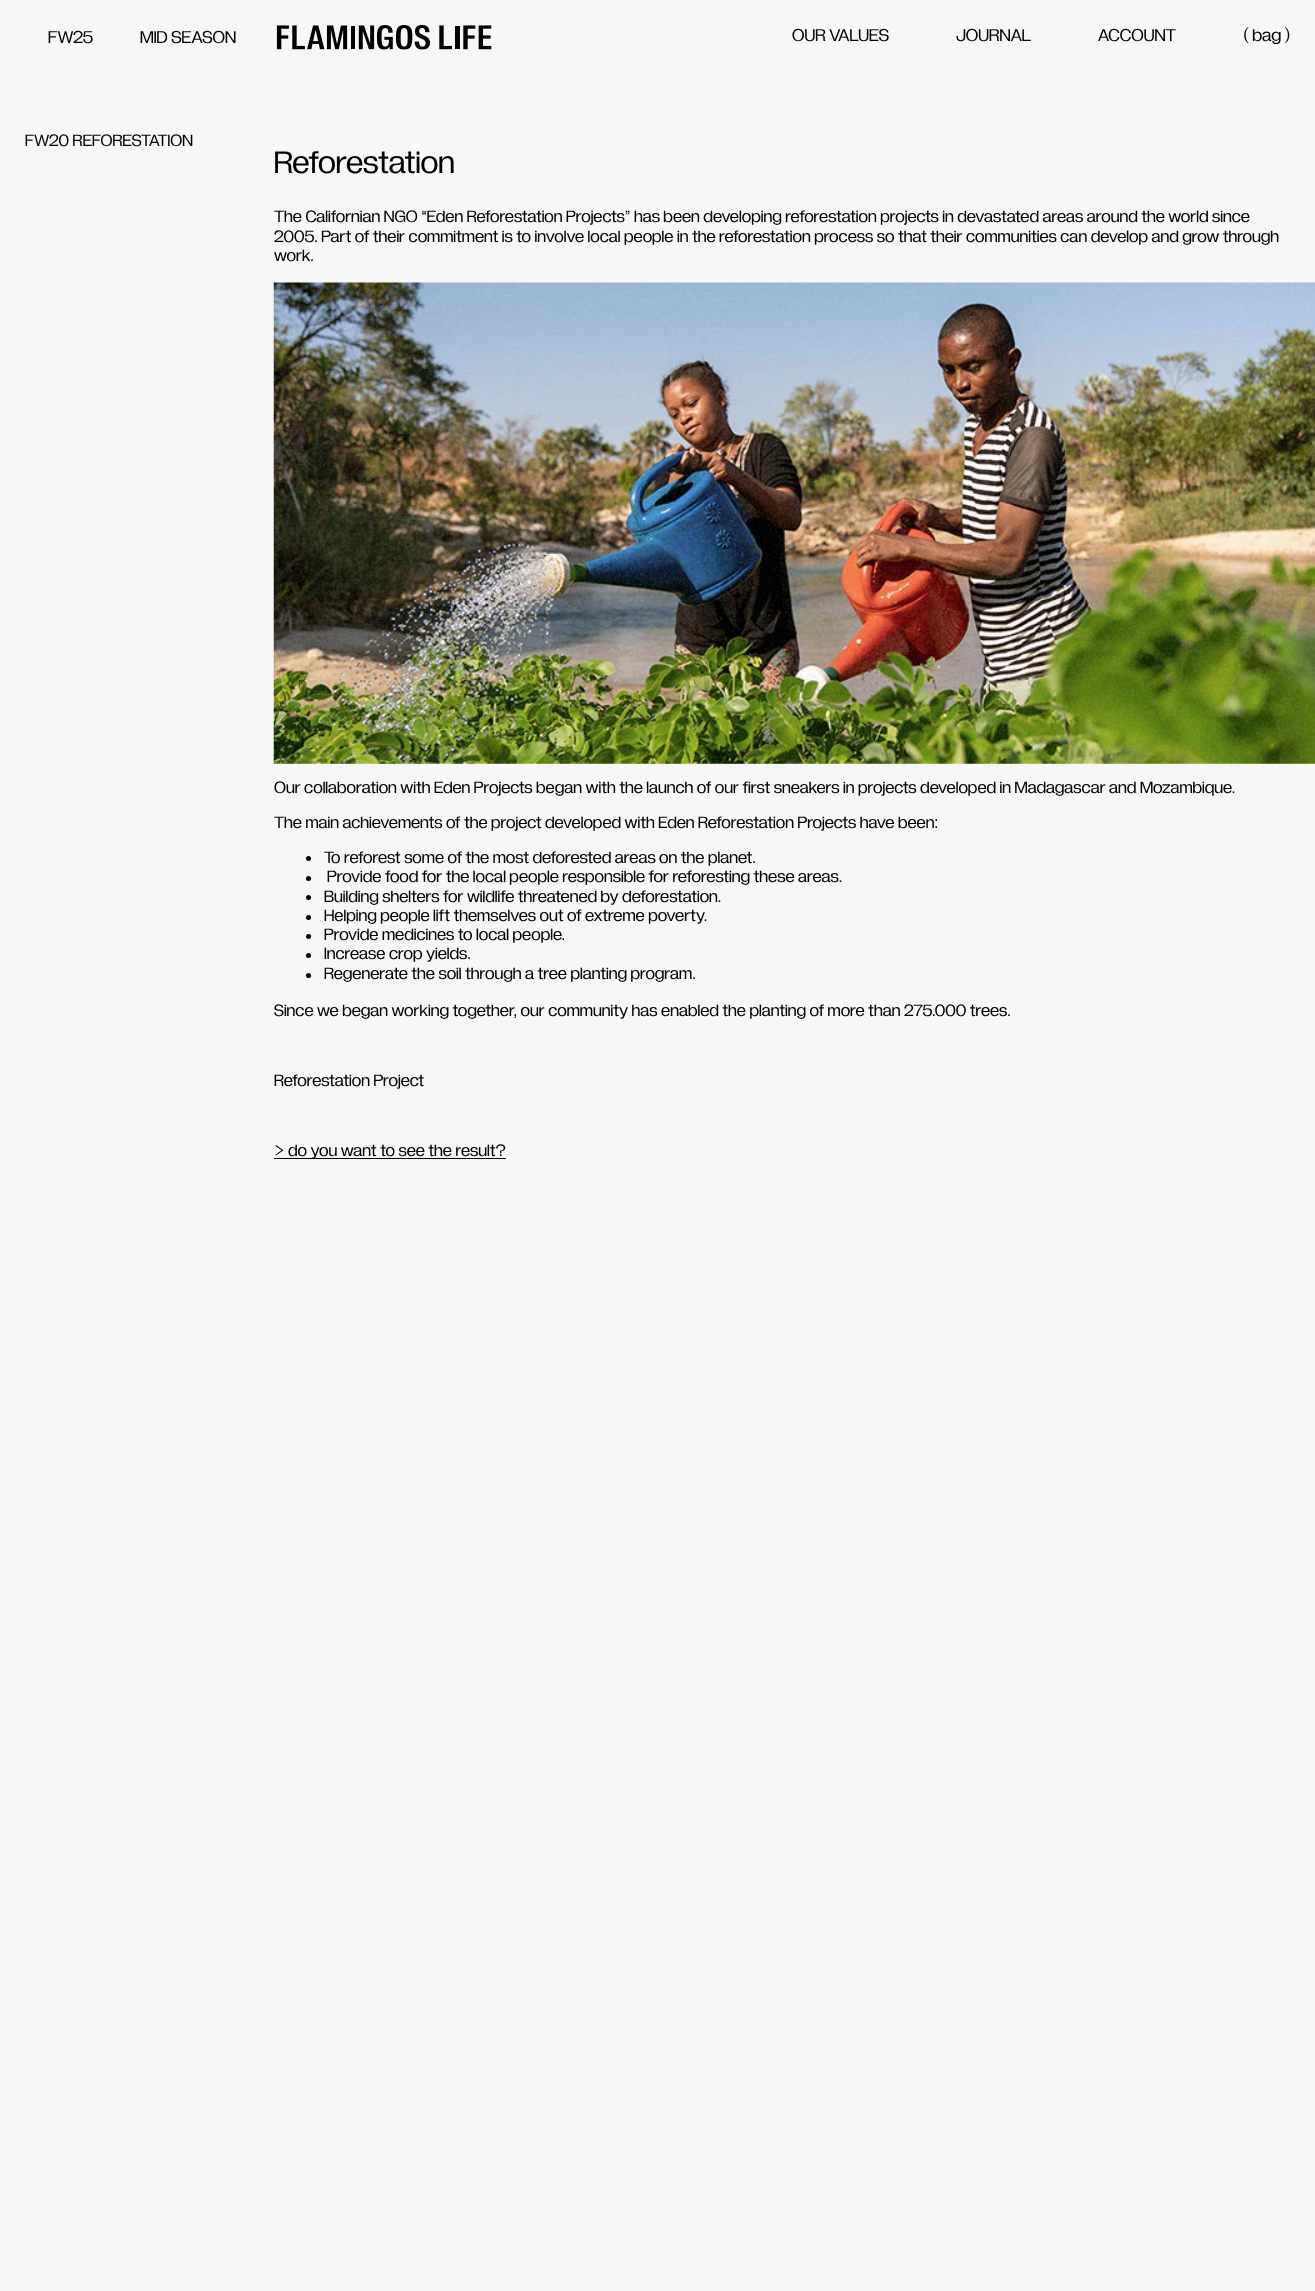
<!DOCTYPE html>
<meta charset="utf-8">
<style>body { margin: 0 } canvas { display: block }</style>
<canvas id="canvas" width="1315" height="2291"></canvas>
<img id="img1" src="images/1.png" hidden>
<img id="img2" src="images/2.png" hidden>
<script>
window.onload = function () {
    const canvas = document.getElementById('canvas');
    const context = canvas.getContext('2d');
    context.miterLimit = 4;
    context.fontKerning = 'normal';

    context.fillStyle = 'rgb(247, 247, 247)';
    context.fillRect(0, 0, 1315, 2291);
    context.drawImage(document.getElementById('img1'), 276, 25, 216, 25);
    context.drawImage(document.getElementById('img2'), 273, 282, 1042, 482);
    context.fillStyle = 'rgb(0, 0, 0)';
    context.beginPath();
    context.arc(308.5, 858.5, 2.5, 0, 2 * Math.PI);
    context.fill();
    context.beginPath();
    context.arc(308.5, 878.5, 2.5, 0, 2 * Math.PI);
    context.fill();
    context.beginPath();
    context.arc(308.5, 897.5, 2.5, 0, 2 * Math.PI);
    context.fill();
    context.beginPath();
    context.arc(308.5, 917.5, 2.5, 0, 2 * Math.PI);
    context.fill();
    context.beginPath();
    context.arc(308.5, 936.5, 2.5, 0, 2 * Math.PI);
    context.fill();
    context.beginPath();
    context.arc(308.5, 955.5, 2.5, 0, 2 * Math.PI);
    context.fill();
    context.beginPath();
    context.arc(308.5, 975.5, 2.5, 0, 2 * Math.PI);
    context.fill();
    context.fillRect(274, 1158, 232, 1);
    context.font = '18.25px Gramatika';
    context.fillText('FW25', 48, 43);
    context.fillText('MID SEASON', 140, 43);
    context.fillText('OUR VALUES', 792, 41);
    context.fillText('JOURNAL', 956, 41);
    context.fillText('ACCOUNT', 1098, 41);
    context.fillText('( bag )', 1243, 41);
    context.font = '17.5px Gramatika';
    context.fillText('FW20 REFORESTATION', 25, 146);
    context.font = '33px Gramatika';
    context.fillText('Reforestation', 274, 173);
    context.font = '17.5px Gramatika';
    context.fillText('The Californian NGO “Eden Reforestation Projects” has been developing reforestation projects in devastated areas around the world since', 274, 222);
    context.fillText('2005. Part of their commitment is to involve local people in the reforestation process so that their communities can develop and grow through', 274, 242);
    context.fillText('work.', 274, 261);
    context.fillText('Our collaboration with Eden Projects began with the launch of our first sneakers in projects developed in Madagascar and Mozambique.', 274, 793);
    context.fillText('The main achievements of the project developed with Eden Reforestation Projects have been:', 274, 828);
    context.fillText('To reforest some of the most deforested areas on the planet.', 324, 863);
    context.fillText('Provide food for the local people responsible for reforesting these areas.', 327, 882);
    context.fillText('Building shelters for wildlife threatened by deforestation.', 324, 902);
    context.fillText('Helping people lift themselves out of extreme poverty.', 324, 921);
    context.fillText('Provide medicines to local people.', 324, 940);
    context.fillText('Increase crop yields.', 324, 959);
    context.fillText('Regenerate the soil through a tree planting program.', 324, 979);
    context.fillText('Since we began working together, our community has enabled the planting of more than 275.000 trees.', 274, 1016);
    context.fillText('Reforestation Project', 274, 1086);
    context.fillText('> do you want to see the result?', 274, 1156);
};
</script>
